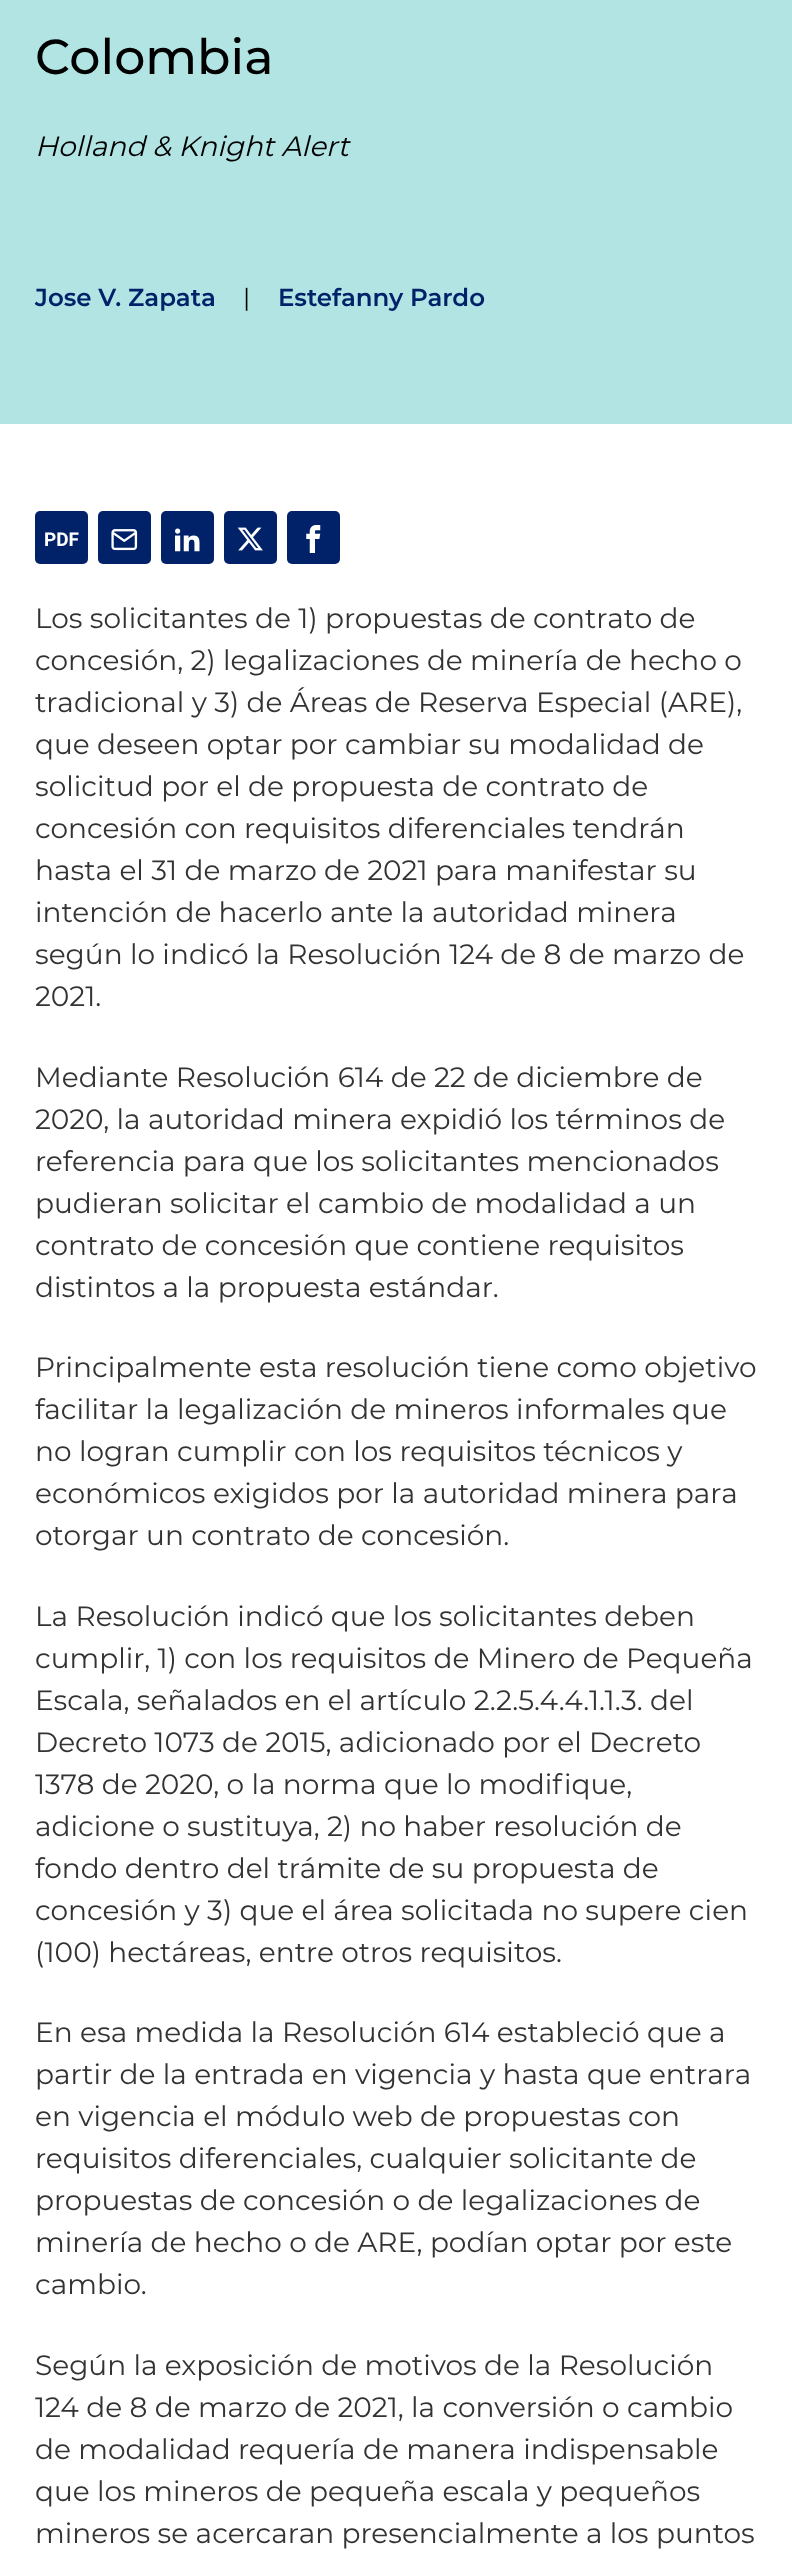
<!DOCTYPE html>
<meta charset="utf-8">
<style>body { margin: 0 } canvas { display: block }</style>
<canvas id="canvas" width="792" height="2566"></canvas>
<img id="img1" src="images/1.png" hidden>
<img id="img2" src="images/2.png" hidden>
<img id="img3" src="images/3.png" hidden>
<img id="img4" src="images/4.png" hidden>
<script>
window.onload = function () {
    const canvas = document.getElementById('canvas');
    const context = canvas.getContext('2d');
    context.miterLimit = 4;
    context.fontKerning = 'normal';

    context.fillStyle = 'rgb(255, 255, 255)';
    context.fillRect(0, 0, 792, 2566);
    context.fillStyle = 'rgb(177, 228, 227)';
    context.fillRect(0, 0, 792, 424);
    context.fillStyle = 'rgb(1, 33, 105)';
    context.beginPath();
    context.roundRect(35, 511, 53, 53, 5);
    context.fill();
    context.beginPath();
    context.roundRect(98, 511, 53, 53, 5);
    context.fill();
    context.drawImage(document.getElementById('img1'), 111, 529, 27, 22);
    context.beginPath();
    context.roundRect(161, 511, 53, 53, 5);
    context.fill();
    context.drawImage(document.getElementById('img2'), 175, 528, 25, 24);
    context.beginPath();
    context.roundRect(224, 511, 53, 53, 5);
    context.fill();
    context.drawImage(document.getElementById('img3'), 237, 527, 26, 24);
    context.beginPath();
    context.roundRect(287, 511, 53, 53, 5);
    context.fill();
    context.drawImage(document.getElementById('img4'), 306, 525, 15, 28);
    context.font = '500 49px Montserrat';
    context.fillStyle = 'rgb(0, 0, 0)';
    context.fillText('Colombia', 35, 74);
    context.font = 'italic 28px Montserrat';
    context.fillText('Holland & Knight Alert', 35, 156);
    context.font = '600 24.5px Montserrat';
    context.fillStyle = 'rgb(1, 33, 105)';
    context.fillText('Jose V. Zapata', 35, 306);
    context.font = '24.5px Montserrat';
    context.fillStyle = 'rgb(0, 0, 0)';
    context.fillText('|', 243, 306);
    context.font = '600 24.5px Montserrat';
    context.fillStyle = 'rgb(1, 33, 105)';
    context.fillText('Estefanny Pardo', 278, 306);
    context.font = 'bold 19px Roboto';
    context.fillStyle = 'rgb(255, 255, 255)';
    context.fillText('PDF', 44, 546);
    context.font = '28px Montserrat';
    context.fillStyle = 'rgb(51, 51, 51)';
    context.fillText('Los solicitantes de 1) propuestas de contrato de', 35, 628);
    context.fillText('concesión, 2) legalizaciones de minería de hecho o', 35, 670);
    context.fillText('tradicional y 3) de Áreas de Reserva Especial (ARE),', 35, 712);
    context.fillText('que deseen optar por cambiar su modalidad de', 35, 754);
    context.fillText('solicitud por el de propuesta de contrato de', 35, 796);
    context.fillText('concesión con requisitos diferenciales tendrán', 35, 838);
    context.fillText('hasta el 31 de marzo de 2021 para manifestar su', 35, 880);
    context.fillText('intención de hacerlo ante la autoridad minera', 35, 922);
    context.fillText('según lo indicó la Resolución 124 de 8 de marzo de', 35, 964);
    context.fillText('2021.', 35, 1006);
    context.fillText('Mediante Resolución 614 de 22 de diciembre de', 35, 1087);
    context.fillText('2020, la autoridad minera expidió los términos de', 35, 1129);
    context.fillText('referencia para que los solicitantes mencionados', 35, 1171);
    context.fillText('pudieran solicitar el cambio de modalidad a un', 35, 1213);
    context.fillText('contrato de concesión que contiene requisitos', 35, 1255);
    context.fillText('distintos a la propuesta estándar.', 35, 1297);
    context.fillText('Principalmente esta resolución tiene como objetivo', 35, 1377);
    context.fillText('facilitar la legalización de mineros informales que', 35, 1419);
    context.fillText('no logran cumplir con los requisitos técnicos y', 35, 1461);
    context.fillText('económicos exigidos por la autoridad minera para', 35, 1503);
    context.fillText('otorgar un contrato de concesión.', 35, 1545);
    context.fillText('La Resolución indicó que los solicitantes deben', 35, 1626);
    context.fillText('cumplir, 1) con los requisitos de Minero de Pequeña', 35, 1668);
    context.fillText('Escala, señalados en el artículo 2.2.5.4.4.1.1.3. del', 35, 1710);
    context.fillText('Decreto 1073 de 2015, adicionado por el Decreto', 35, 1752);
    context.fillText('1378 de 2020, o la norma que lo modifique,', 35, 1794);
    context.fillText('adicione o sustituya, 2) no haber resolución de', 35, 1836);
    context.fillText('fondo dentro del trámite de su propuesta de', 35, 1878);
    context.fillText('concesión y 3) que el área solicitada no supere cien', 35, 1920);
    context.fillText('(100) hectáreas, entre otros requisitos.', 35, 1962);
    context.fillText('En esa medida la Resolución 614 estableció que a', 35, 2042);
    context.fillText('partir de la entrada en vigencia y hasta que entrara', 35, 2084);
    context.fillText('en vigencia el módulo web de propuestas con', 35, 2126);
    context.fillText('requisitos diferenciales, cualquier solicitante de', 35, 2168);
    context.fillText('propuestas de concesión o de legalizaciones de', 35, 2210);
    context.fillText('minería de hecho o de ARE, podían optar por este', 35, 2252);
    context.fillText('cambio.', 35, 2294);
    context.fillText('Según la exposición de motivos de la Resolución', 35, 2375);
    context.fillText('124 de 8 de marzo de 2021, la conversión o cambio', 35, 2417);
    context.fillText('de modalidad requería de manera indispensable', 35, 2459);
    context.fillText('que los mineros de pequeña escala y pequeños', 35, 2501);
    context.fillText('mineros se acercaran presencialmente a los puntos', 35, 2543);
};
</script>
